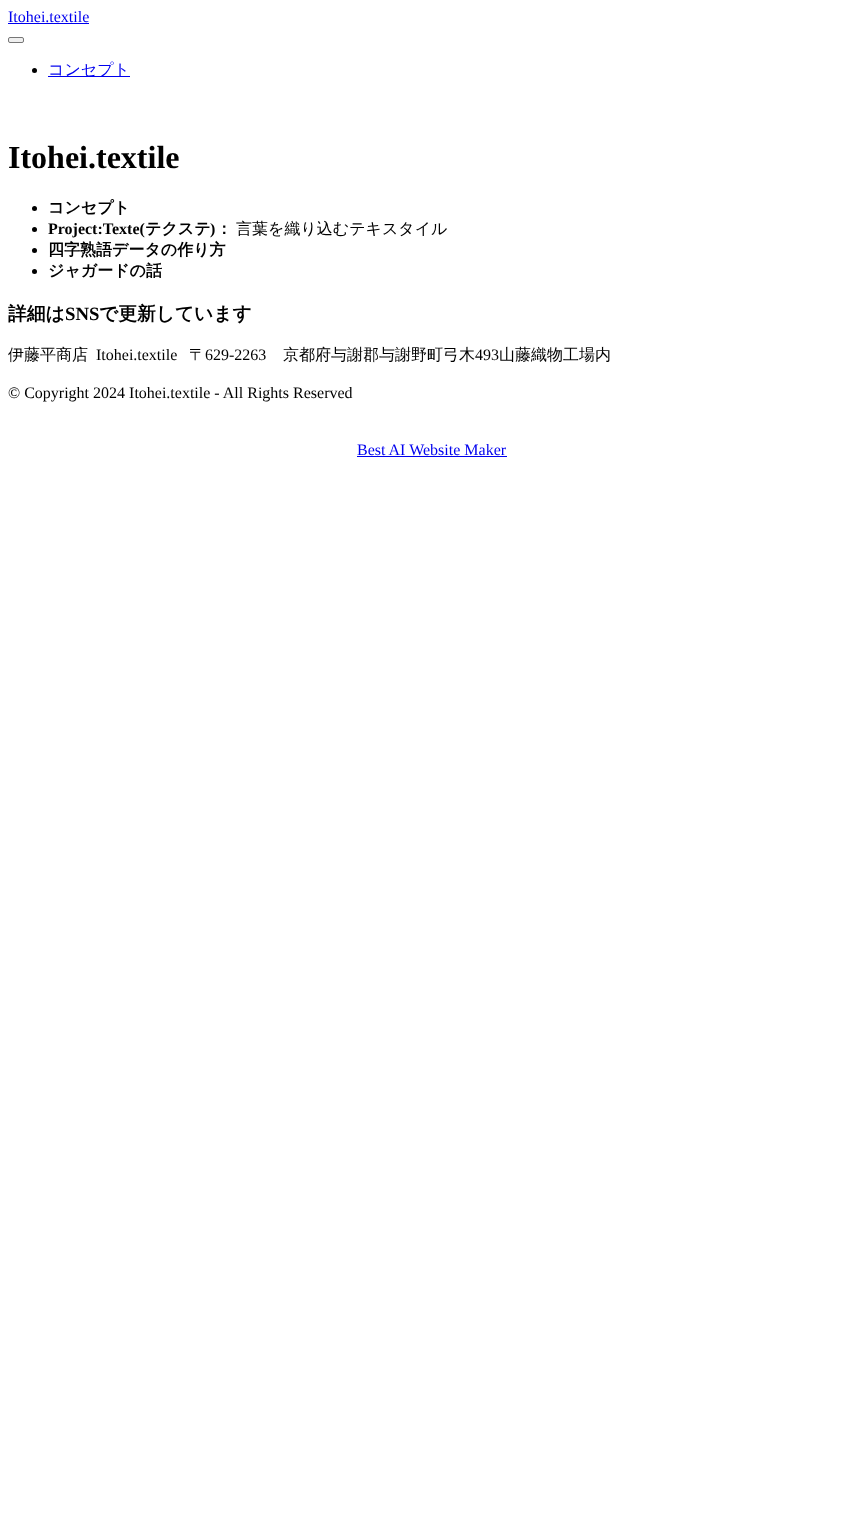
<!DOCTYPE html>
<meta charset="utf-8">
<style>body { margin: 0 } canvas { display: block }</style>
<canvas id="canvas" width="864" height="1522"></canvas>
<script>
window.onload = function () {
    const canvas = document.getElementById('canvas');
    const context = canvas.getContext('2d');
    context.miterLimit = 4;
    context.fontKerning = 'normal';

    context.fillStyle = 'rgb(255, 255, 255)';
    context.fillRect(0, 0, 864, 1522);
    context.fillStyle = 'rgb(0, 0, 238)';
    context.fillRect(8, 23, 81, 1);
    context.fillStyle = 'rgb(239, 239, 239)';
    context.beginPath();
    context.roundRect(8.5, 37.5, 15, 5, 1.5);
    context.fill();
    context.strokeStyle = 'rgb(118, 118, 118)';
    context.stroke();
    context.fillStyle = 'rgb(0, 0, 0)';
    context.beginPath();
    context.arc(34.5, 70.5, 2.5, 0, 2 * Math.PI);
    context.fill();
    context.fillStyle = 'rgb(0, 0, 238)';
    context.fillRect(48, 76, 82, 1);
    context.fillStyle = 'rgb(0, 0, 0)';
    context.beginPath();
    context.arc(34.5, 208.5, 2.5, 0, 2 * Math.PI);
    context.fill();
    context.beginPath();
    context.arc(34.5, 229.5, 2.5, 0, 2 * Math.PI);
    context.fill();
    context.beginPath();
    context.arc(34.5, 250.5, 2.5, 0, 2 * Math.PI);
    context.fill();
    context.beginPath();
    context.arc(34.5, 271.5, 2.5, 0, 2 * Math.PI);
    context.fill();
    context.fillStyle = 'rgb(0, 0, 238)';
    context.fillRect(357, 456, 150, 1);
    context.font = '16px Liberation Serif';
    context.fillText('Itohei.textile', 8, 22);
    context.font = '500 16px WenQuanYi Zen Hei';
    context.fillText('コンセプト', 48, 75);
    context.font = 'bold 32px Liberation Serif';
    context.fillStyle = 'rgb(0, 0, 0)';
    context.fillText('Itohei.textile', 8, 168);
    context.font = 'bold 16px WenQuanYi Zen Hei';
    context.fillText('コンセプト', 48, 213);
    context.font = 'bold 16px Liberation Serif';
    context.fillText('Project:Texte(', 48, 234);
    context.font = 'bold 16px WenQuanYi Zen Hei';
    context.fillText('テクステ', 145, 234);
    context.font = 'bold 16px Liberation Serif';
    context.fillText(')', 210, 234);
    context.font = 'bold 16px WenQuanYi Zen Hei';
    context.fillText('：', 216, 234);
    context.font = '500 16px WenQuanYi Zen Hei';
    context.fillText('言葉を織り込むテキスタイル', 236, 234);
    context.font = 'bold 16px WenQuanYi Zen Hei';
    context.fillText('四字熟語データの作り方', 48, 255);
    context.fillText('ジャガードの話', 48, 276);
    context.font = 'bold 18.75px WenQuanYi Zen Hei';
    context.fillText('詳細は', 8, 320);
    context.font = 'bold 18.75px Liberation Serif';
    context.fillText('SNS', 65, 320);
    context.font = 'bold 18.75px WenQuanYi Zen Hei';
    context.fillText('で更新しています', 99, 320);
    context.font = '500 16px WenQuanYi Zen Hei';
    context.fillText('伊藤平商店', 8, 360);
    context.font = '16px Liberation Serif';
    context.fillText('Itohei.textile', 96, 360);
    context.font = '500 16px WenQuanYi Zen Hei';
    context.fillText('〒', 189, 360);
    context.font = '16px Liberation Serif';
    context.fillText('629-2263', 205, 360);
    context.font = '500 16px WenQuanYi Zen Hei';
    context.fillText('京都府与謝郡与謝野町弓木', 283, 360);
    context.font = '16px Liberation Serif';
    context.fillText('493', 475, 360);
    context.font = '500 16px WenQuanYi Zen Hei';
    context.fillText('山藤織物工場内', 499, 360);
    context.font = '16px Liberation Serif';
    context.fillText('© Copyright 2024 Itohei.textile - All Rights Reserved', 8, 398);
    context.fillStyle = 'rgb(0, 0, 238)';
    context.fillText('Best AI Website Maker', 357, 455);
};
</script>
